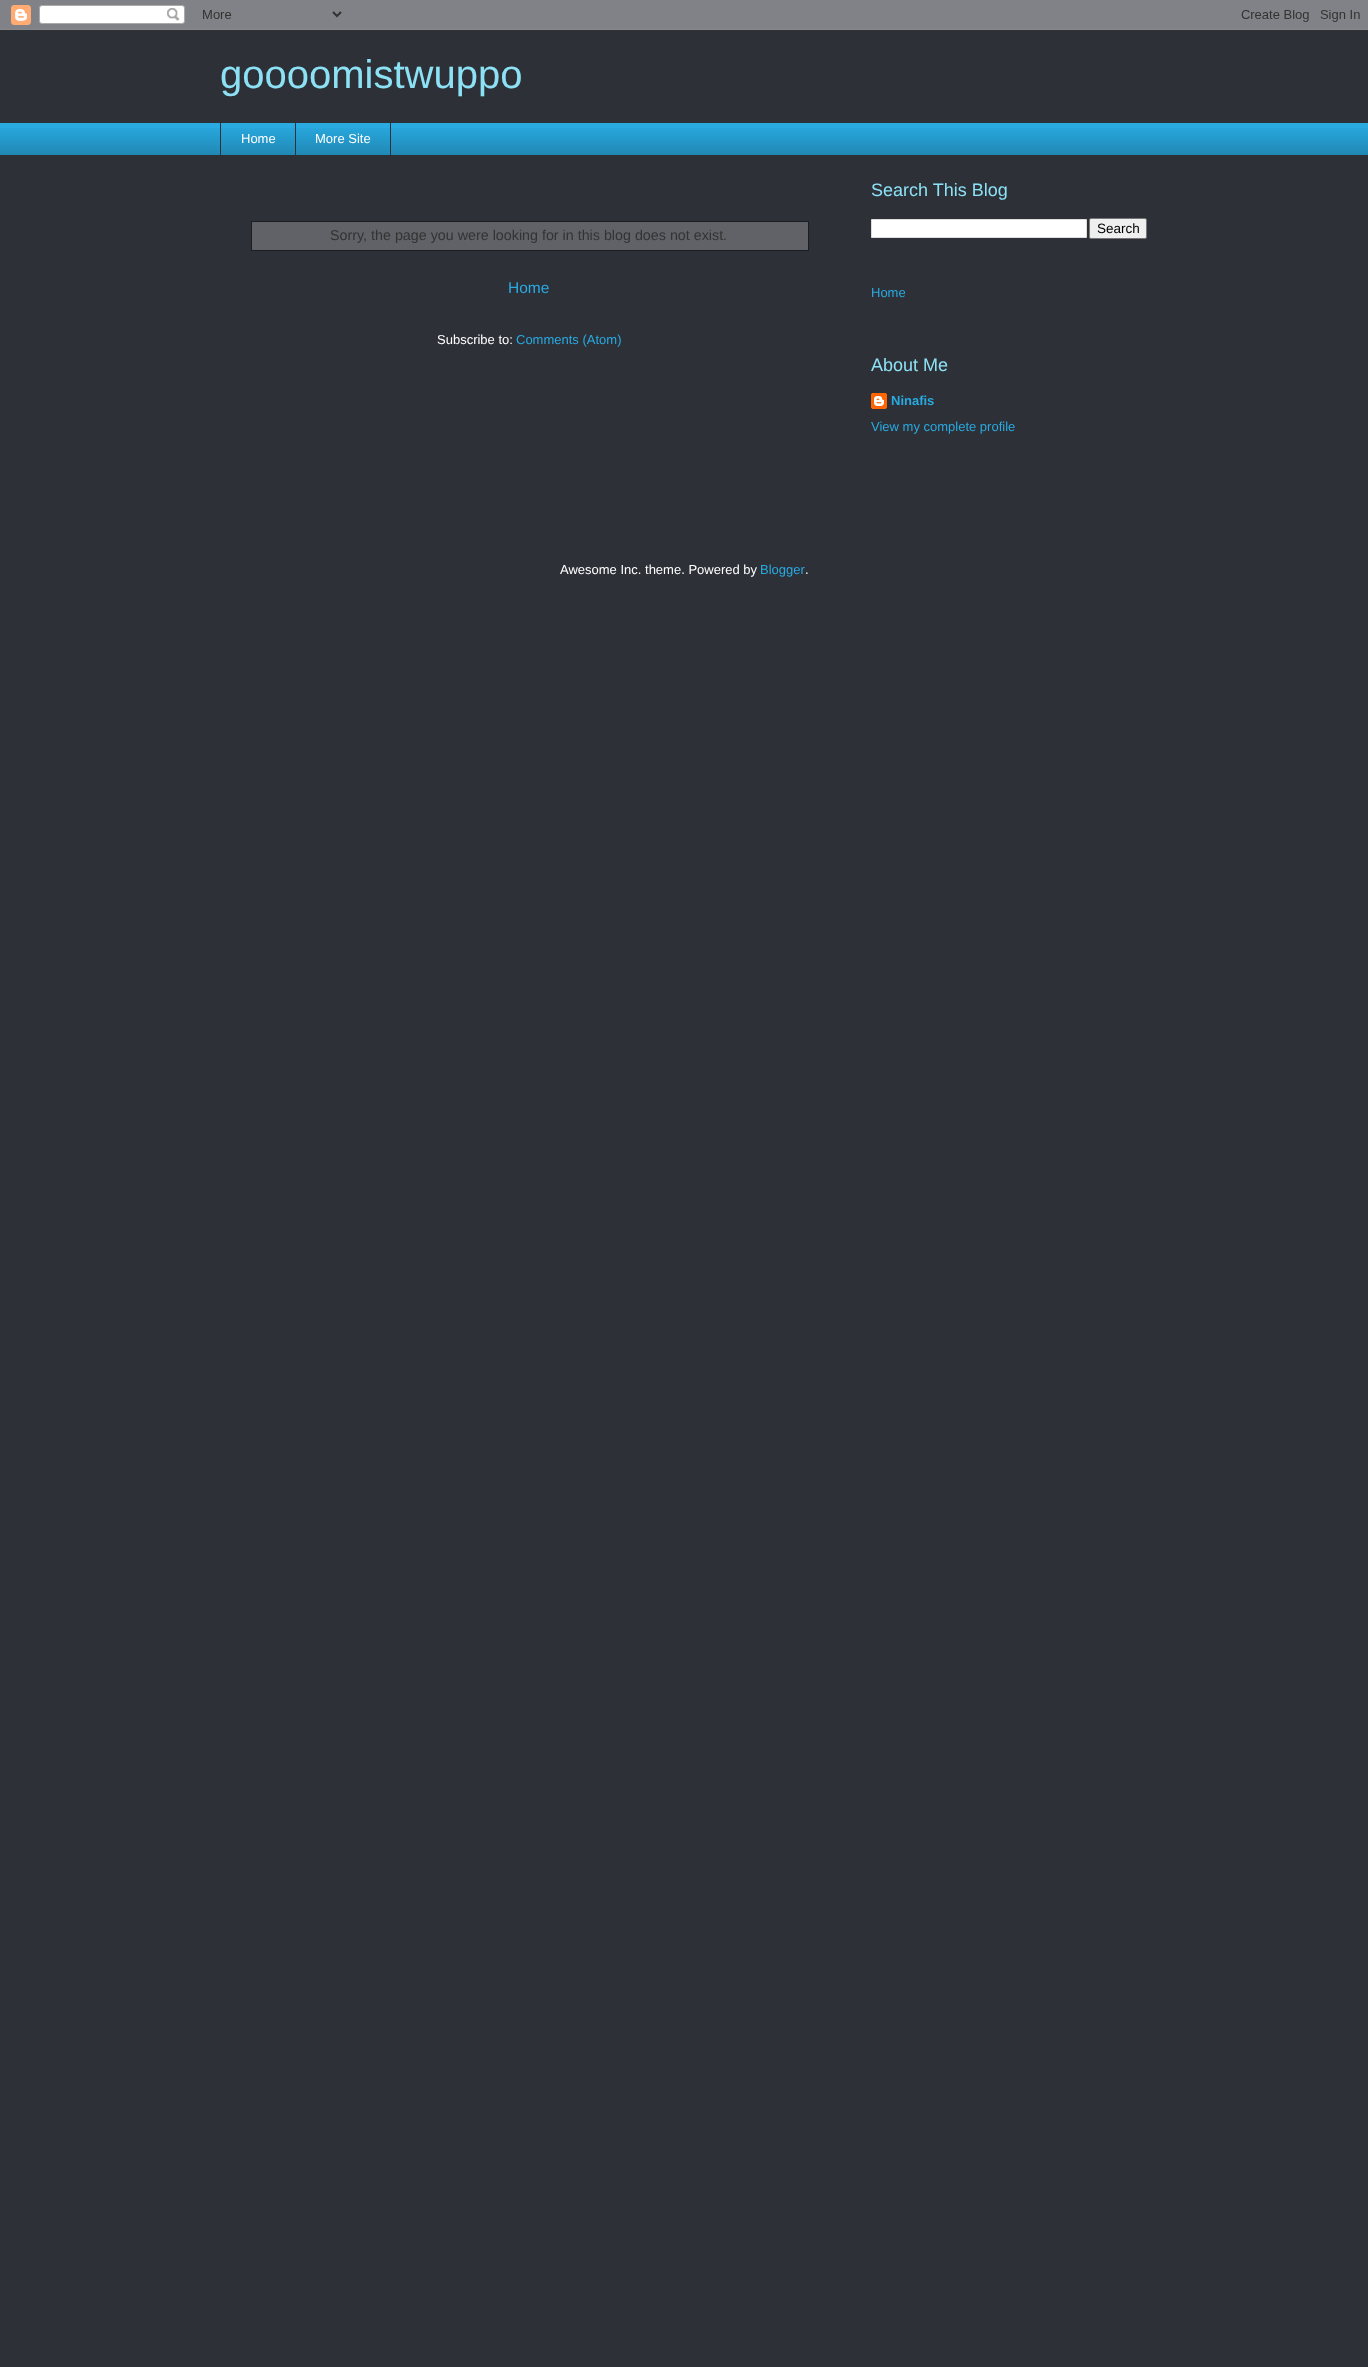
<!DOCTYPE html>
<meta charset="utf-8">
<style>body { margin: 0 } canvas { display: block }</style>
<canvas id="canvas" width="1368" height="2367"></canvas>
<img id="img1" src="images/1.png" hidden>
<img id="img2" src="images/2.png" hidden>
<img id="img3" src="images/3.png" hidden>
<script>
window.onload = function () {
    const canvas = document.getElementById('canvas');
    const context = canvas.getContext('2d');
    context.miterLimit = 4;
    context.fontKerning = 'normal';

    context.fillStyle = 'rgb(45, 48, 55)';
    context.fillRect(0, 0, 1368, 2367);
    context.drawImage(document.getElementById('img1'), 0, 0, 1368, 30);
    context.fillStyle = 'rgb(41, 170, 225)';
    context.fillRect(0, 123, 1368, 32);
    context.drawImage(document.getElementById('img2'), 0, 128, 1368, 27);
    context.fillStyle = 'rgb(45, 48, 55)';
    context.fillRect(220, 122, 1, 34);
    context.strokeStyle = 'rgb(45, 48, 55)';
    context.strokeRect(295.5, 122.5, 95, 33);
    context.strokeStyle = 'rgb(27, 29, 33)';
    context.strokeRect(251.5, 221.5, 557, 29);
    context.fillStyle = 'rgb(96, 98, 103)';
    context.fillRect(252, 222, 556, 28);
    context.fillStyle = 'rgb(255, 255, 255)';
    context.beginPath();
    context.rect(871.5, 219.5, 215, 18);
    context.fill();
    context.strokeStyle = 'rgb(221, 221, 221)';
    context.stroke();
    context.fillStyle = 'rgb(239, 239, 239)';
    context.beginPath();
    context.roundRect(1089.5, 218.5, 57, 20, 1.5);
    context.fill();
    context.strokeStyle = 'rgb(118, 118, 118)';
    context.stroke();
    context.drawImage(document.getElementById('img3'), 871, 393, 16, 16);
    context.font = '40px Liberation Sans';
    context.fillStyle = 'rgb(140, 225, 245)';
    context.fillText('goooomistwuppo', 220, 88);
    context.font = '13px Liberation Sans';
    context.fillStyle = 'rgb(255, 255, 255)';
    context.fillText('Home', 241, 143);
    context.fillText('More Site', 315, 143);
    context.font = '14.3px Liberation Sans';
    context.fillStyle = 'rgb(51, 51, 51)';
    context.fillText('Sorry, the page you were looking for in this blog does not exist.', 330, 240);
    context.font = '15.5px Liberation Sans';
    context.fillStyle = 'rgb(41, 170, 225)';
    context.fillText('Home', 508, 293);
    context.font = '13px Liberation Sans';
    context.fillStyle = 'rgb(255, 255, 255)';
    context.fillText('Subscribe to:', 437, 344);
    context.fillStyle = 'rgb(41, 170, 225)';
    context.fillText('Comments (Atom)', 516, 344);
    context.font = '18px Liberation Sans';
    context.fillStyle = 'rgb(140, 225, 245)';
    context.fillText('Search This Blog', 871, 196);
    context.font = '13.5px Liberation Sans';
    context.fillStyle = 'rgb(0, 0, 0)';
    context.fillText('Search', 1097, 233);
    context.font = '13px Liberation Sans';
    context.fillStyle = 'rgb(41, 170, 225)';
    context.fillText('Home', 871, 297);
    context.font = '18px Liberation Sans';
    context.fillStyle = 'rgb(140, 225, 245)';
    context.fillText('About Me', 871, 371);
    context.font = 'bold 13px Liberation Sans';
    context.fillStyle = 'rgb(41, 170, 225)';
    context.fillText('Ninafis', 891, 405);
    context.font = '13px Liberation Sans';
    context.fillText('View my complete profile', 871, 431);
    context.fillStyle = 'rgb(255, 255, 255)';
    context.fillText('Awesome Inc. theme. Powered by', 560, 574);
    context.fillStyle = 'rgb(41, 170, 225)';
    context.fillText('Blogger', 760, 574);
    context.fillStyle = 'rgb(255, 255, 255)';
    context.fillText('.', 805, 574);
};
</script>
